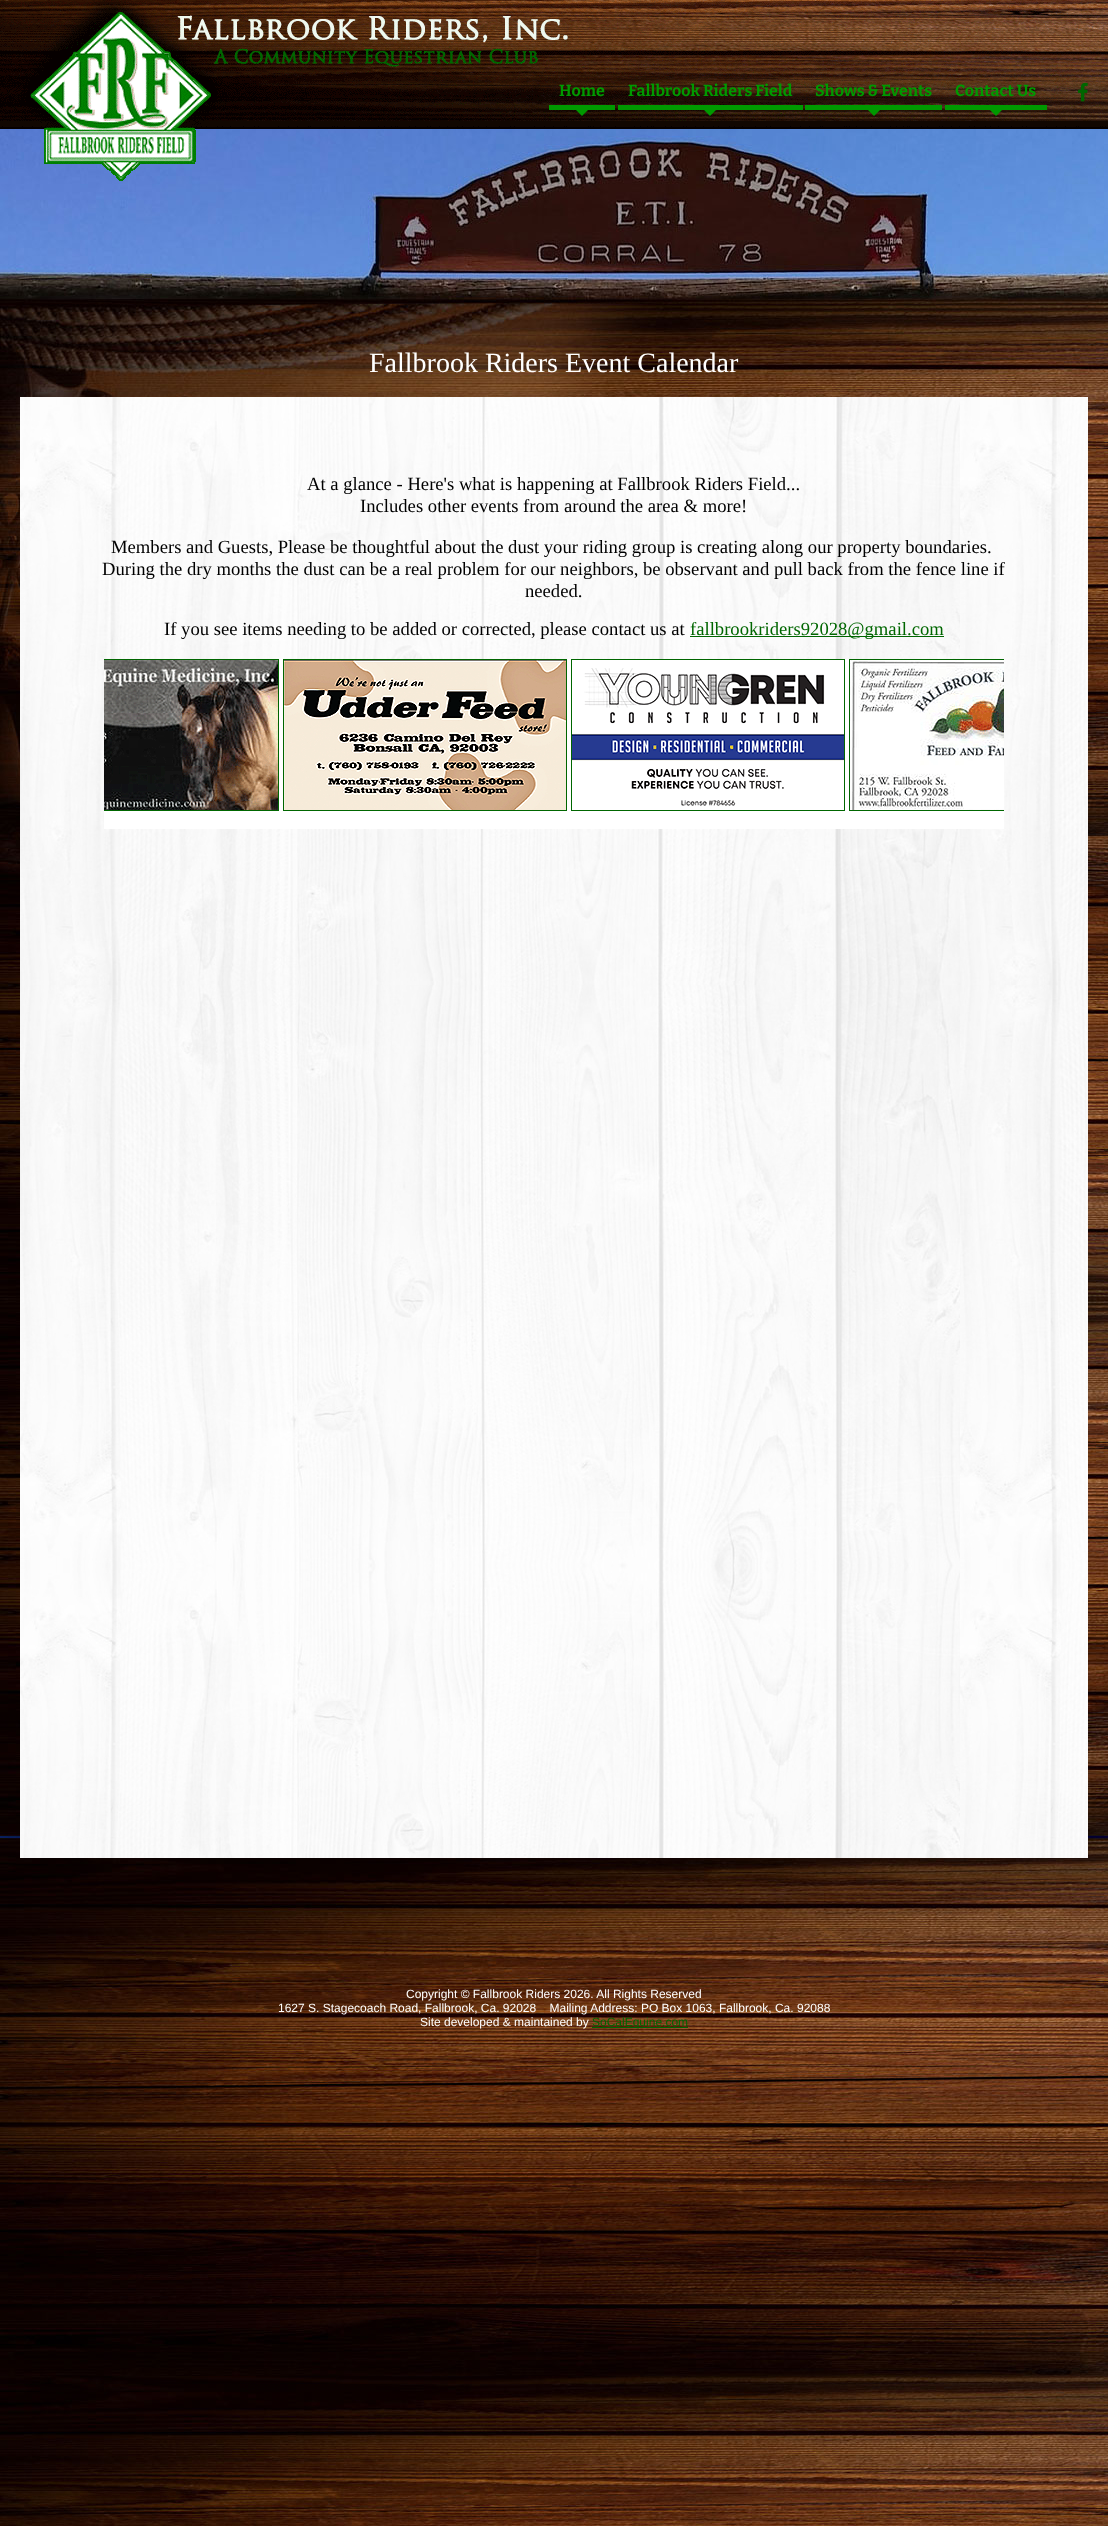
<!DOCTYPE html>
<meta charset="utf-8">
<style>body { margin: 0 } canvas { display: block }</style>
<canvas id="canvas" width="1108" height="2526"></canvas>
<img id="img1" src="images/1.png" hidden>
<img id="img2" src="images/2.png" hidden>
<img id="img3" src="images/3.png" hidden>
<img id="img4" src="images/4.png" hidden>
<img id="img5" src="images/5.png" hidden>
<img id="img6" src="images/6.png" hidden>
<img id="img7" src="images/7.png" hidden>
<img id="img8" src="images/8.png" hidden>
<script>
window.onload = function () {
    const canvas = document.getElementById('canvas');
    const context = canvas.getContext('2d');
    context.miterLimit = 4;
    context.fontKerning = 'normal';

    context.fillStyle = 'rgb(255, 255, 255)';
    context.fillRect(0, 0, 1108, 2526);
    context.drawImage(document.getElementById('img1'), 0, 129, 1108, 2397);
    context.drawImage(document.getElementById('img2'), 0, 0, 1108, 181);
    context.fillStyle = 'rgb(0, 153, 0)';
    context.fillRect(549, 105, 66, 5);
    context.beginPath();
    context.moveTo(576, 110);
    context.lineTo(588, 110);
    context.lineTo(582, 116);
    context.closePath();
    context.fill();
    context.fillRect(618, 105, 185, 5);
    context.beginPath();
    context.moveTo(704, 110);
    context.lineTo(716, 110);
    context.lineTo(710, 116);
    context.closePath();
    context.fill();
    context.fillRect(805, 105, 137, 5);
    context.beginPath();
    context.moveTo(868, 110);
    context.lineTo(880, 110);
    context.lineTo(874, 116);
    context.closePath();
    context.fill();
    context.fillRect(945, 105, 102, 5);
    context.beginPath();
    context.moveTo(990, 110);
    context.lineTo(1002, 110);
    context.lineTo(996, 116);
    context.closePath();
    context.fill();
    context.drawImage(document.getElementById('img3'), 1078, 82, 10, 20);
    context.drawImage(document.getElementById('img4'), 20, 397, 1068, 1461);
    context.fillStyle = 'rgb(0, 102, 0)';
    context.fillRect(690, 636, 254, 1);
    context.fillStyle = 'rgb(255, 255, 255)';
    context.fillRect(104, 659, 900, 170);
    context.save();
    context.beginPath();
    context.rect(104, 659, 900, 170);
    context.clip();
    context.strokeStyle = 'rgb(0, 102, 0)';
    context.strokeRect(5.5, 659.5, 273, 151);
    context.restore();
    context.strokeStyle = 'rgb(0, 102, 0)';
    context.strokeRect(283.5, 659.5, 283, 151);
    context.strokeRect(571.5, 659.5, 273, 151);
    context.save();
    context.beginPath();
    context.rect(104, 659, 900, 170);
    context.clip();
    context.strokeRect(849.5, 659.5, 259, 151);
    context.restore();
    context.drawImage(document.getElementById('img5'), 104, 660, 174, 150);
    context.drawImage(document.getElementById('img6'), 284, 660, 282, 150);
    context.drawImage(document.getElementById('img7'), 572, 668, 272, 138);
    context.drawImage(document.getElementById('img8'), 850, 660, 154, 150);
    context.fillStyle = 'rgb(0, 102, 0)';
    context.fillRect(592, 2027, 96, 1);
    context.font = 'bold 16px Bitter';
    context.fillStyle = 'rgb(0, 153, 0)';
    context.fillText('Home', 559, 96);
    context.fillText('Fallbrook Riders Field', 628, 96);
    context.fillText('Shows & Events', 815, 96);
    context.fillText('Contact Us', 955, 96);
    context.font = '28px Liberation Serif';
    context.fillStyle = 'rgb(255, 255, 255)';
    context.fillText('Fallbrook Riders Event Calendar', 369, 372);
    context.font = '18.65px Liberation Serif';
    context.fillStyle = 'rgb(0, 0, 0)';
    context.fillText('At a glance - Here\'s what is happening at Fallbrook Riders Field...', 307, 490);
    context.fillText('Includes other events from around the area & more!', 360, 512);
    context.fillText('Members and Guests, Please be thoughtful about the dust your riding group is creating along our property boundaries.', 111, 553);
    context.fillText('During the dry months the dust can be a real problem for our neighbors, be observant and pull back from the fence line if', 102, 575);
    context.fillText('needed.', 525, 597);
    context.fillText('If you see items needing to be added or corrected, please contact us at', 164, 635);
    context.fillStyle = 'rgb(0, 102, 0)';
    context.fillText('fallbrookriders92028@gmail.com', 690, 635);
    context.font = '12px Liberation Sans';
    context.fillStyle = 'rgb(255, 255, 255)';
    context.fillText('Copyright © Fallbrook Riders 2026. All Rights Reserved', 406, 1998);
    context.fillText('1627 S. Stagecoach Road, Fallbrook, Ca. 92028    Mailing Address: PO Box 1063, Fallbrook, Ca. 92088', 278, 2012);
    context.fillText('Site developed & maintained by', 420, 2026);
    context.fillStyle = 'rgb(0, 102, 0)';
    context.fillText('SoCalEquine.com', 592, 2026);
};
</script>
